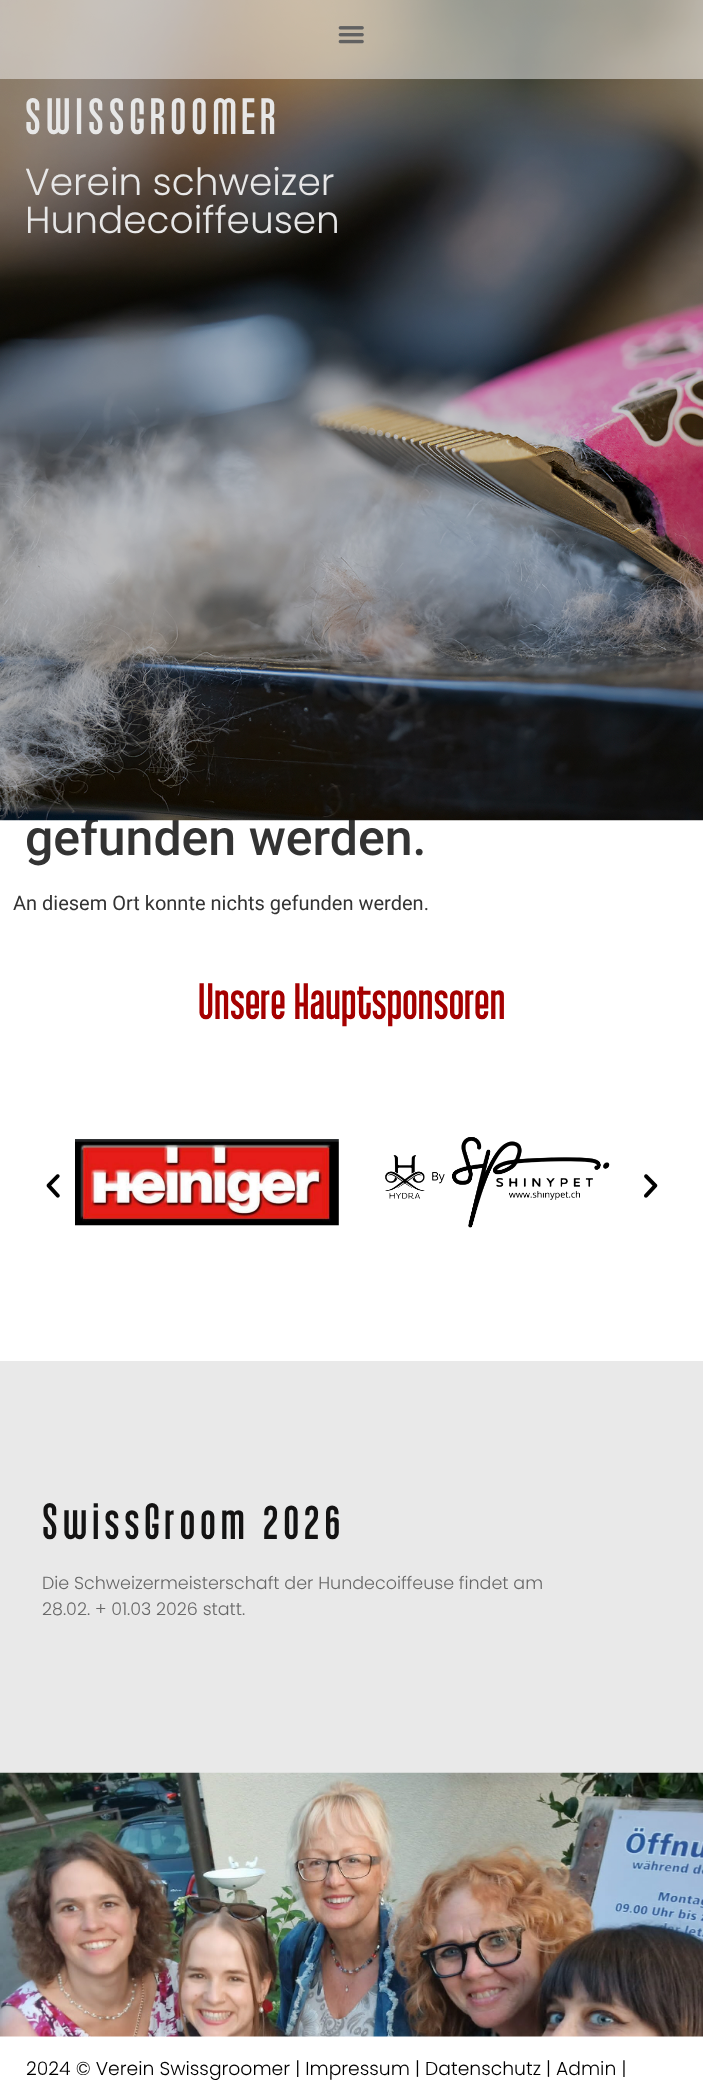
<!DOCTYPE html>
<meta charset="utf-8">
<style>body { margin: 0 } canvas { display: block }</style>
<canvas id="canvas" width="703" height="2081"></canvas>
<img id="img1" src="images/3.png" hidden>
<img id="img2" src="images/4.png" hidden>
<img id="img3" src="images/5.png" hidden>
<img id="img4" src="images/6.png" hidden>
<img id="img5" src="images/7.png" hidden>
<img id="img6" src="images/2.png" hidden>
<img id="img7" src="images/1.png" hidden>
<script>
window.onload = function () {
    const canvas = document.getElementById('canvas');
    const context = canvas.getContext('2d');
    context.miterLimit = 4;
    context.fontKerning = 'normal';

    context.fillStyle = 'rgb(255, 255, 255)';
    context.fillRect(0, 0, 703, 2081);
    context.drawImage(document.getElementById('img1'), 46, 1174, 14, 24);
    context.drawImage(document.getElementById('img2'), 75, 1139, 264, 87);
    context.drawImage(document.getElementById('img3'), 385, 1137, 225, 91);
    context.drawImage(document.getElementById('img4'), 644, 1174, 14, 24);
    context.fillStyle = 'rgb(233, 233, 233)';
    context.fillRect(0, 1361, 703, 412);
    context.drawImage(document.getElementById('img5'), 0, 1772, 703, 265);
    context.font = '500 50px Roboto';
    context.fillStyle = 'rgb(51, 51, 51)';
    context.fillText('gefunden werden.', 25, 855);
    context.drawImage(document.getElementById('img6'), 0, 0, 703, 821);
    context.fillStyle = 'rgba(255, 255, 255, 0.48)';
    context.fillRect(0, 0, 703, 79);
    context.drawImage(document.getElementById('img7'), 338, 26, 26, 18);
    context.font = '300 37.5px Poppins';
    context.fillStyle = 'rgb(231, 231, 231)';
    context.fillText('Hundecoiffeusen', 25, 233);
    context.fillText('Verein schweizer', 25, 195);
    context.letterSpacing = '5px';
    context.font = '50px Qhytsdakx';
    context.fillText('SWISSGROOMER', 25, 134);
    context.letterSpacing = '0px';
    context.font = '20px Roboto';
    context.fillStyle = 'rgb(51, 51, 51)';
    context.fillText('An diesem Ort konnte nichts gefunden werden.', 13, 910);
    context.font = '50px Qhytsdakx';
    context.fillStyle = 'rgb(165, 0, 0)';
    context.fillText('Unsere Hauptsponsoren', 198, 1019);
    context.letterSpacing = '5px';
    context.fillStyle = 'rgb(20, 19, 19)';
    context.fillText('SwissGroom 2026', 42, 1539);
    context.letterSpacing = '0px';
    context.font = '300 17.5px Poppins';
    context.fillStyle = 'rgb(104, 104, 104)';
    context.fillText('Die Schweizermeisterschaft der Hundecoiffeuse findet am', 42, 1589);
    context.fillText('28.02. + 01.03 2026 statt.', 42, 1615);
    context.font = '300 18.75px Poppins';
    context.fillStyle = 'rgb(0, 0, 0)';
    context.fillText('2024 © Verein Swissgroomer | Impressum | Datenschutz | Admin |', 26, 2075);
};
</script>
